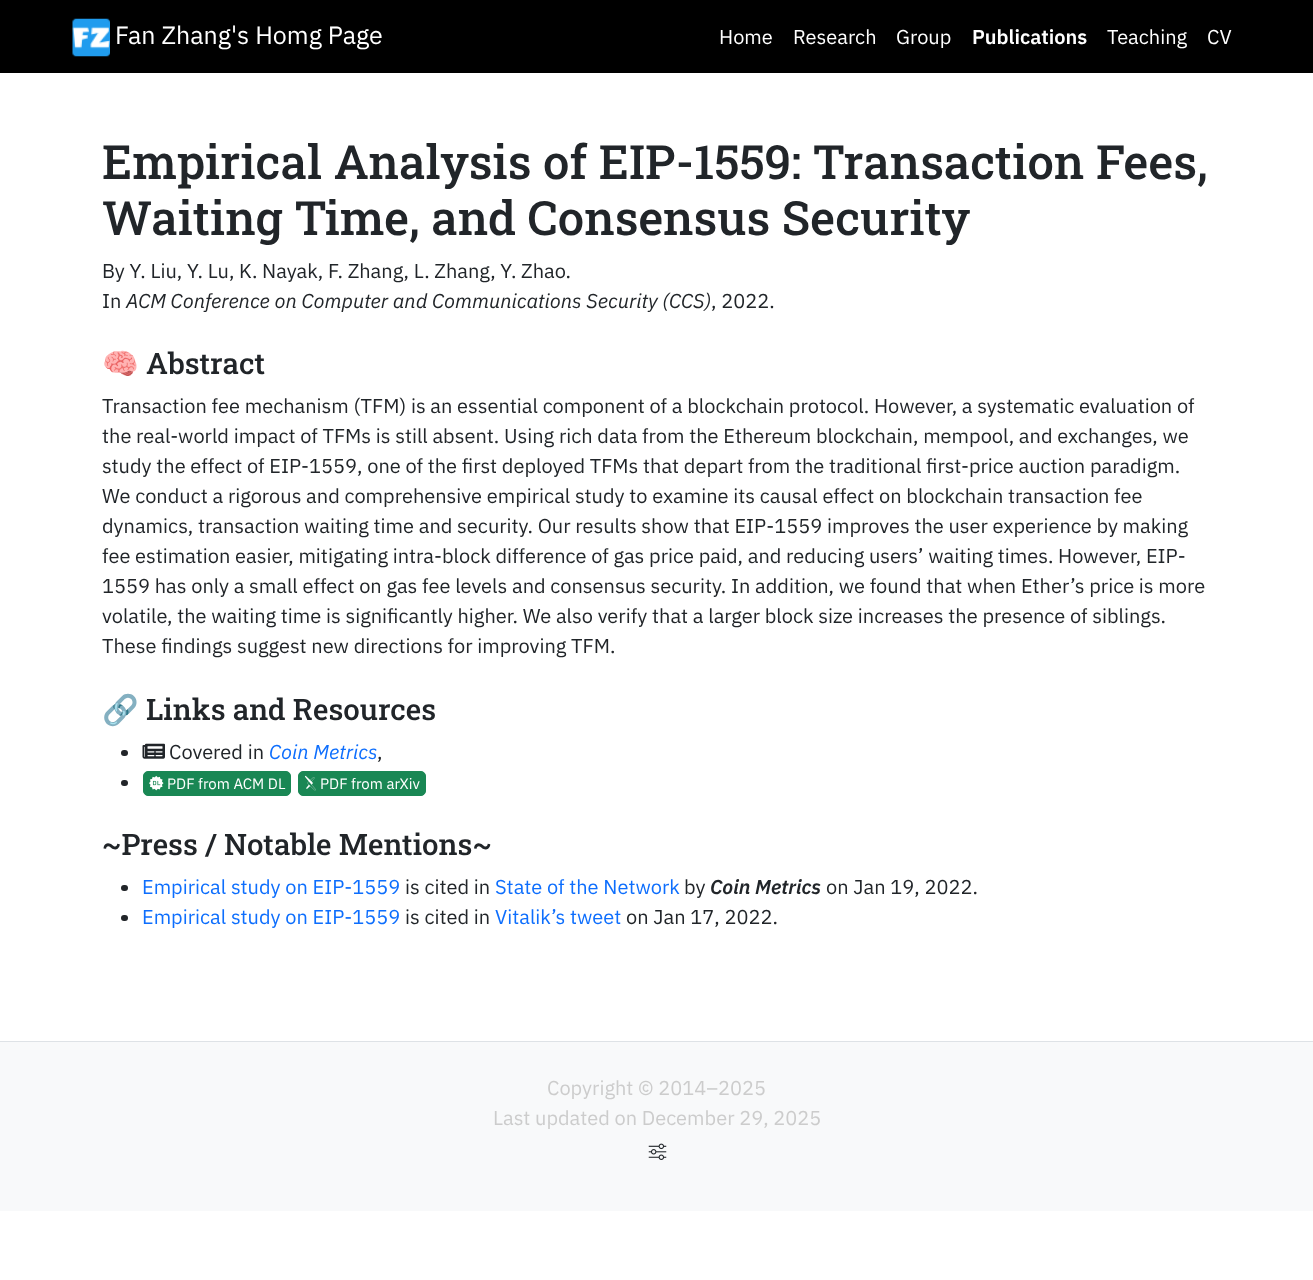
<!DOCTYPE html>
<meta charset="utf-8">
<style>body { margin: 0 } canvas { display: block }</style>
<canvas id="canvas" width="1313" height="1280"></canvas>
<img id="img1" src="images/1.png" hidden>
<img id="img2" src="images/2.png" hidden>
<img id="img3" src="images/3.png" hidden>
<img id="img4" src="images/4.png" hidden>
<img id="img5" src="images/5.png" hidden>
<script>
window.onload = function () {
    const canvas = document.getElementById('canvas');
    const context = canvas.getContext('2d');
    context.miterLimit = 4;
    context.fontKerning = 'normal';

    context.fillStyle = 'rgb(255, 255, 255)';
    context.fillRect(0, 0, 1313, 1280);
    context.fillStyle = 'rgb(0, 0, 0)';
    context.fillRect(0, 0, 1313, 73);
    context.drawImage(document.getElementById('img1'), 72, 18, 38, 39);
    context.fillStyle = 'rgb(33, 37, 41)';
    context.beginPath();
    context.roundRect(121, 750, 7, 6, 3);
    context.fill();
    context.drawImage(document.getElementById('img2'), 142, 743, 23, 16);
    context.beginPath();
    context.roundRect(121, 780, 7, 6, 3);
    context.fill();
    context.fillStyle = 'rgb(25, 135, 84)';
    context.beginPath();
    context.roundRect(143.5, 771.5, 147, 24, 4.5);
    context.fill();
    context.strokeStyle = 'rgb(25, 135, 84)';
    context.stroke();
    context.drawImage(document.getElementById('img3'), 149, 775, 15, 16);
    context.beginPath();
    context.roundRect(298.5, 771.5, 127, 24, 4.5);
    context.fill();
    context.stroke();
    context.drawImage(document.getElementById('img4'), 304, 775, 12, 16);
    context.fillStyle = 'rgb(33, 37, 41)';
    context.beginPath();
    context.roundRect(121, 885, 7, 6, 3);
    context.fill();
    context.beginPath();
    context.roundRect(121, 915, 7, 6, 3);
    context.fill();
    context.fillStyle = 'rgb(248, 249, 250)';
    context.fillRect(0, 1042, 1313, 169);
    context.fillStyle = 'rgb(222, 226, 230)';
    context.fillRect(0, 1041, 1313, 1);
    context.drawImage(document.getElementById('img5'), 648, 1143, 19, 17);
    context.font = '25px IBM Plex Sans';
    context.fillStyle = 'rgb(255, 255, 255)';
    context.fillText('Fan Zhang\'s Homg Page', 115, 44);
    context.font = '20px IBM Plex Sans';
    context.fillText('Home', 719, 44);
    context.fillText('Research', 793, 44);
    context.fillText('Group', 896, 44);
    context.font = '600 20px IBM Plex Sans';
    context.fillText('Publications', 972, 44);
    context.font = '20px IBM Plex Sans';
    context.fillText('Teaching', 1107, 44);
    context.fillText('CV', 1207, 44);
    context.font = '500 47.25px Roboto Slab';
    context.fillStyle = 'rgb(33, 37, 41)';
    context.fillText('Empirical Analysis of EIP-1559: Transaction Fees,', 102, 179);
    context.fillText('Waiting Time, and Consensus Security', 102, 235);
    context.font = '20px IBM Plex Sans';
    context.fillText('By Y. Liu, Y. Lu, K. Nayak, F. Zhang, L. Zhang, Y. Zhao.', 102, 278);
    context.fillText('In', 102, 308);
    context.font = 'italic 20px IBM Plex Sans';
    context.fillText('ACM Conference on Computer and Communications Security (CCS)', 126, 308);
    context.font = '20px IBM Plex Sans';
    context.fillText(', 2022.', 711, 308);
    context.font = '29.5px Noto Color Emoji';
    context.fillText('🧠', 102, 374);
    context.font = '500 29.5px Roboto Slab';
    context.fillText('Abstract', 146, 374);
    context.font = '20px IBM Plex Sans';
    context.fillText('Transaction fee mechanism (TFM) is an essential component of a blockchain protocol. However, a systematic evaluation of', 102, 413);
    context.fillText('the real-world impact of TFMs is still absent. Using rich data from the Ethereum blockchain, mempool, and exchanges, we', 102, 443);
    context.fillText('study the effect of EIP-1559, one of the first deployed TFMs that depart from the traditional first-price auction paradigm.', 102, 473);
    context.fillText('We conduct a rigorous and comprehensive empirical study to examine its causal effect on blockchain transaction fee', 102, 503);
    context.fillText('dynamics, transaction waiting time and security. Our results show that EIP-1559 improves the user experience by making', 102, 533);
    context.fillText('fee estimation easier, mitigating intra-block difference of gas price paid, and reducing users’ waiting times. However, EIP-', 102, 563);
    context.fillText('1559 has only a small effect on gas fee levels and consensus security. In addition, we found that when Ether’s price is more', 102, 593);
    context.fillText('volatile, the waiting time is significantly higher. We also verify that a larger block size increases the presence of siblings.', 102, 623);
    context.fillText('These findings suggest new directions for improving TFM.', 102, 653);
    context.font = '29.5px Noto Color Emoji';
    context.fillText('🔗', 102, 720);
    context.font = '500 29.5px Roboto Slab';
    context.fillText('Links and Resources', 146, 720);
    context.font = '20px IBM Plex Sans';
    context.fillText('Covered in', 169, 759);
    context.font = 'italic 20px IBM Plex Sans';
    context.fillStyle = 'rgb(13, 110, 253)';
    context.fillText('Coin Metrics', 269, 759);
    context.font = '20px IBM Plex Sans';
    context.fillStyle = 'rgb(33, 37, 41)';
    context.fillText(',', 377, 759);
    context.font = '15px IBM Plex Sans';
    context.fillStyle = 'rgb(255, 255, 255)';
    context.fillText('PDF from ACM DL', 167, 789);
    context.fillText('PDF from arXiv', 320, 789);
    context.font = '500 29.5px Roboto Slab';
    context.fillStyle = 'rgb(33, 37, 41)';
    context.fillText('~Press / Notable Mentions~', 102, 855);
    context.font = '20px IBM Plex Sans';
    context.fillStyle = 'rgb(13, 110, 253)';
    context.fillText('Empirical study on EIP-1559', 142, 894);
    context.fillStyle = 'rgb(33, 37, 41)';
    context.fillText('is cited in', 405, 894);
    context.fillStyle = 'rgb(13, 110, 253)';
    context.fillText('State of the Network', 495, 894);
    context.fillStyle = 'rgb(33, 37, 41)';
    context.fillText('by', 684, 894);
    context.font = 'italic 600 20px IBM Plex Sans';
    context.fillText('Coin Metrics', 710, 894);
    context.font = '20px IBM Plex Sans';
    context.fillText('on Jan 19, 2022.', 826, 894);
    context.fillStyle = 'rgb(13, 110, 253)';
    context.fillText('Empirical study on EIP-1559', 142, 924);
    context.fillStyle = 'rgb(33, 37, 41)';
    context.fillText('is cited in', 405, 924);
    context.fillStyle = 'rgb(13, 110, 253)';
    context.fillText('Vitalik’s tweet', 495, 924);
    context.fillStyle = 'rgb(33, 37, 41)';
    context.fillText('on Jan 17, 2022.', 626, 924);
    context.fillStyle = 'rgb(204, 204, 204)';
    context.fillText('Copyright © 2014–2025', 547, 1095);
    context.fillText('Last updated on December 29, 2025', 493, 1125);
};
</script>
